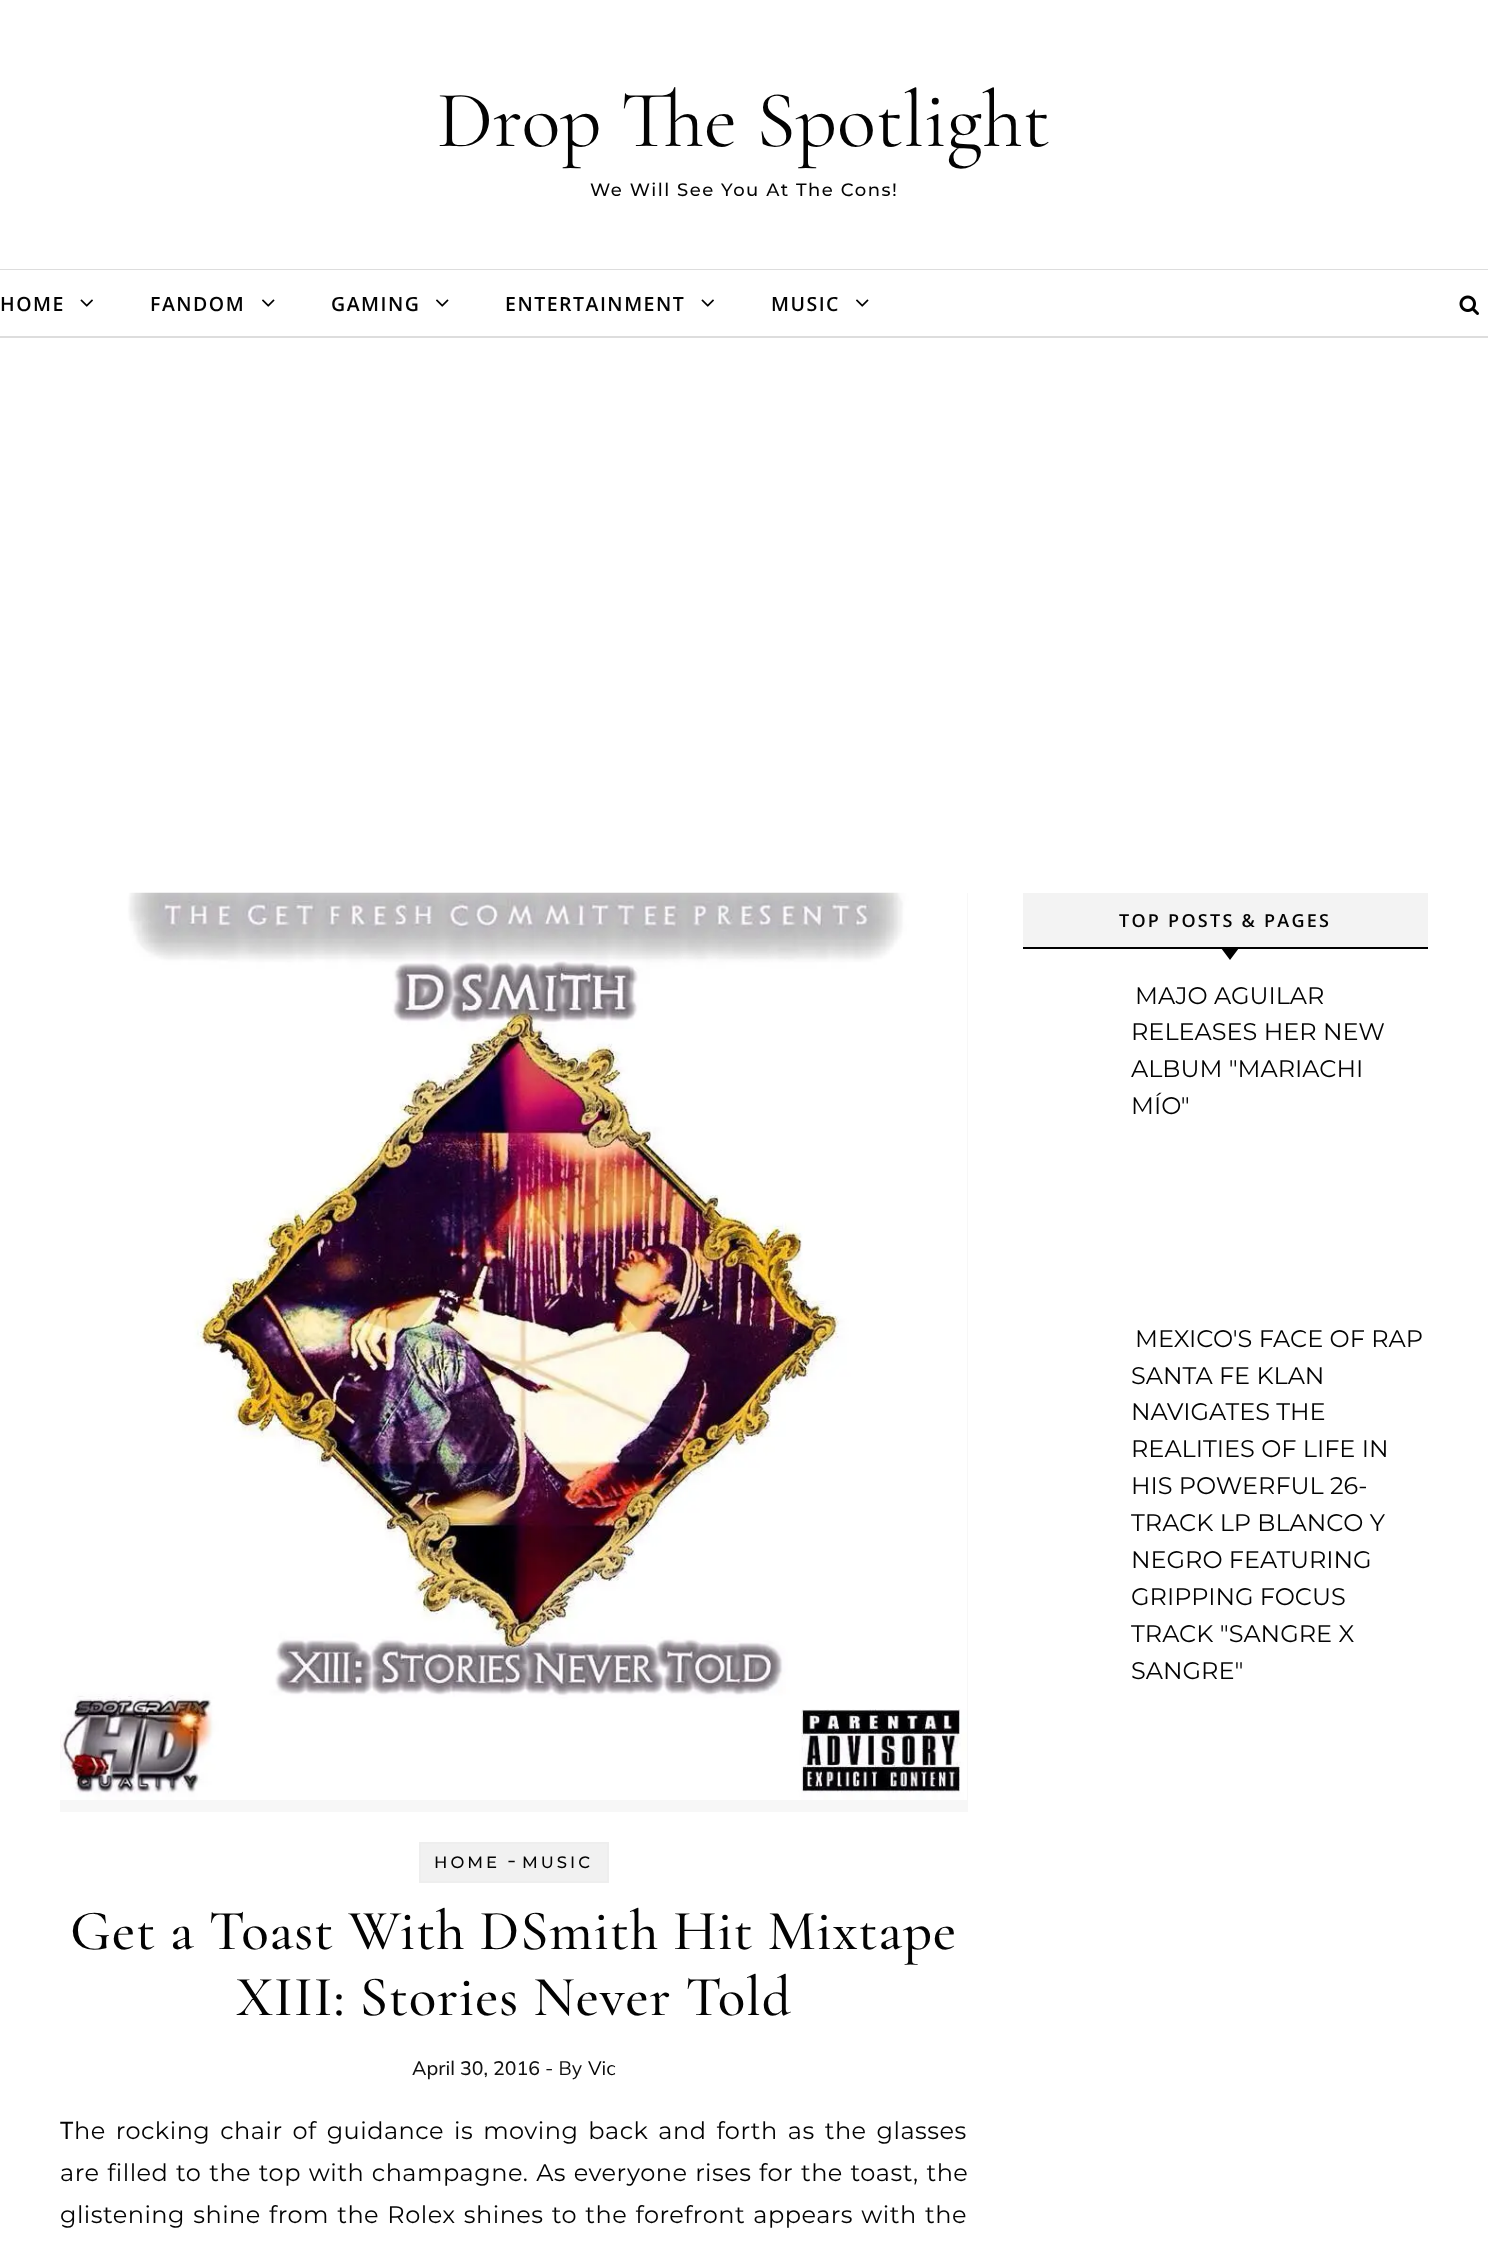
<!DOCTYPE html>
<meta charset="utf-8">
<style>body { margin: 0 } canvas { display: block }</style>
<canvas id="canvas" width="1488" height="2252"></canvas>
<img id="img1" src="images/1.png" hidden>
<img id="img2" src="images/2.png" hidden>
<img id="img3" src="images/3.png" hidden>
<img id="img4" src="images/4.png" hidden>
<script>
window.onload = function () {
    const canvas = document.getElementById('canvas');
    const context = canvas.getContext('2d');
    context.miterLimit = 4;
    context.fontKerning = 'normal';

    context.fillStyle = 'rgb(255, 255, 255)';
    context.fillRect(0, 0, 1488, 2252);
    context.fillStyle = 'rgb(221, 221, 221)';
    context.fillRect(0, 269, 1488, 1);
    context.fillRect(0, 336, 1488, 2);
    context.drawImage(document.getElementById('img1'), 80, 299, 13, 8);
    context.drawImage(document.getElementById('img2'), 262, 299, 13, 8);
    context.drawImage(document.getElementById('img2'), 436, 299, 13, 8);
    context.drawImage(document.getElementById('img1'), 701, 299, 13, 8);
    context.drawImage(document.getElementById('img2'), 856, 299, 13, 8);
    context.drawImage(document.getElementById('img3'), 1459, 295, 20, 20);
    context.fillStyle = 'rgb(243, 243, 243)';
    context.fillRect(1023, 893, 405, 54);
    context.fillStyle = 'rgb(0, 0, 0)';
    context.fillRect(1023, 947, 405, 2);
    context.beginPath();
    context.moveTo(1221, 948);
    context.lineTo(1239, 948);
    context.lineTo(1230, 960);
    context.closePath();
    context.fill();
    context.fillStyle = 'rgb(247, 247, 247)';
    context.fillRect(60, 893, 908, 919);
    context.drawImage(document.getElementById('img4'), 60, 892, 907, 908);
    context.fillStyle = 'rgb(241, 241, 241)';
    context.beginPath();
    context.rect(420, 1843, 188, 39);
    context.fill();
    context.strokeStyle = 'rgb(238, 238, 238)';
    context.lineWidth = 2;
    context.stroke();
    context.font = '81px Cormorant Garamond';
    context.fillStyle = 'rgb(3, 3, 3)';
    context.fillText('Drop The Spotlight', 437, 146);
    context.letterSpacing = '1.5px';
    context.font = '100 18px "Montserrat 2"';
    context.fillText('We Will See You At The Cons!', 590, 196);
    context.font = '600 19.5px Open Sans';
    context.fillText('HOME', 0, 311);
    context.fillText('FANDOM', 150, 311);
    context.fillText('GAMING', 331, 311);
    context.fillText('ENTERTAINMENT', 505, 311);
    context.fillText('MUSIC', 771, 311);
    context.letterSpacing = '2.25px';
    context.font = '600 18px Open Sans';
    context.fillText('TOP POSTS & PAGES', 1119, 927);
    context.letterSpacing = '0px';
    context.font = '100 24px Montserrat';
    context.fillText('MAJO AGUILAR', 1135, 1004);
    context.fillText('RELEASES HER NEW', 1131, 1040);
    context.fillText('ALBUM "MARIACHI', 1131, 1077);
    context.fillText('MÍO"', 1131, 1114);
    context.fillText('MEXICO\'S FACE OF RAP', 1135, 1347);
    context.fillText('SANTA FE KLAN', 1131, 1384);
    context.fillText('NAVIGATES THE', 1131, 1420);
    context.fillText('REALITIES OF LIFE IN', 1131, 1457);
    context.fillText('HIS POWERFUL 26-', 1131, 1494);
    context.fillText('TRACK LP BLANCO Y', 1131, 1531);
    context.fillText('NEGRO FEATURING', 1131, 1568);
    context.fillText('GRIPPING FOCUS', 1131, 1605);
    context.fillText('TRACK "SANGRE X', 1131, 1642);
    context.fillText('SANGRE"', 1131, 1679);
    context.letterSpacing = '3px';
    context.font = '100 16.5px "Montserrat 2"';
    context.fillText('HOME', 434, 1868);
    context.letterSpacing = '0px';
    context.font = '100 24px Montserrat';
    context.fillText('-', 507, 1868);
    context.letterSpacing = '3px';
    context.font = '100 16.5px "Montserrat 2"';
    context.fillText('MUSIC', 522, 1868);
    context.letterSpacing = '0.75px';
    context.font = '500 57px Cormorant Garamond';
    context.fillText('Get a Toast With DSmith Hit Mixtape', 70, 1949);
    context.fillText('XIII: Stories Never Told', 236, 2015);
    context.letterSpacing = '0px';
    context.font = '500 19.5px Mulish';
    context.fillStyle = 'rgb(17, 17, 17)';
    context.fillText('April 30, 2016', 412, 2075);
    context.font = '19.5px Mulish';
    context.fillText('- By', 545, 2075);
    context.fillStyle = 'rgb(3, 3, 3)';
    context.fillText('Vic', 588, 2075);
    context.letterSpacing = '0.48px';
    context.font = '24px Noto Sans';
    context.fillText('T', 60, 2139);
    context.wordSpacing = '3.25px';
    context.font = '100 24px Montserrat';
    context.fillText('he rocking chair of guidance is moving back and forth as the glasses', 74, 2139);
    context.wordSpacing = '1px';
    context.fillText('are filled to the top with champagne. As everyone rises for the toast, the', 60, 2181);
    context.wordSpacing = '1.5px';
    context.fillText('glistening shine from the Rolex shines to the forefront appears with the', 60, 2223);
};
</script>
